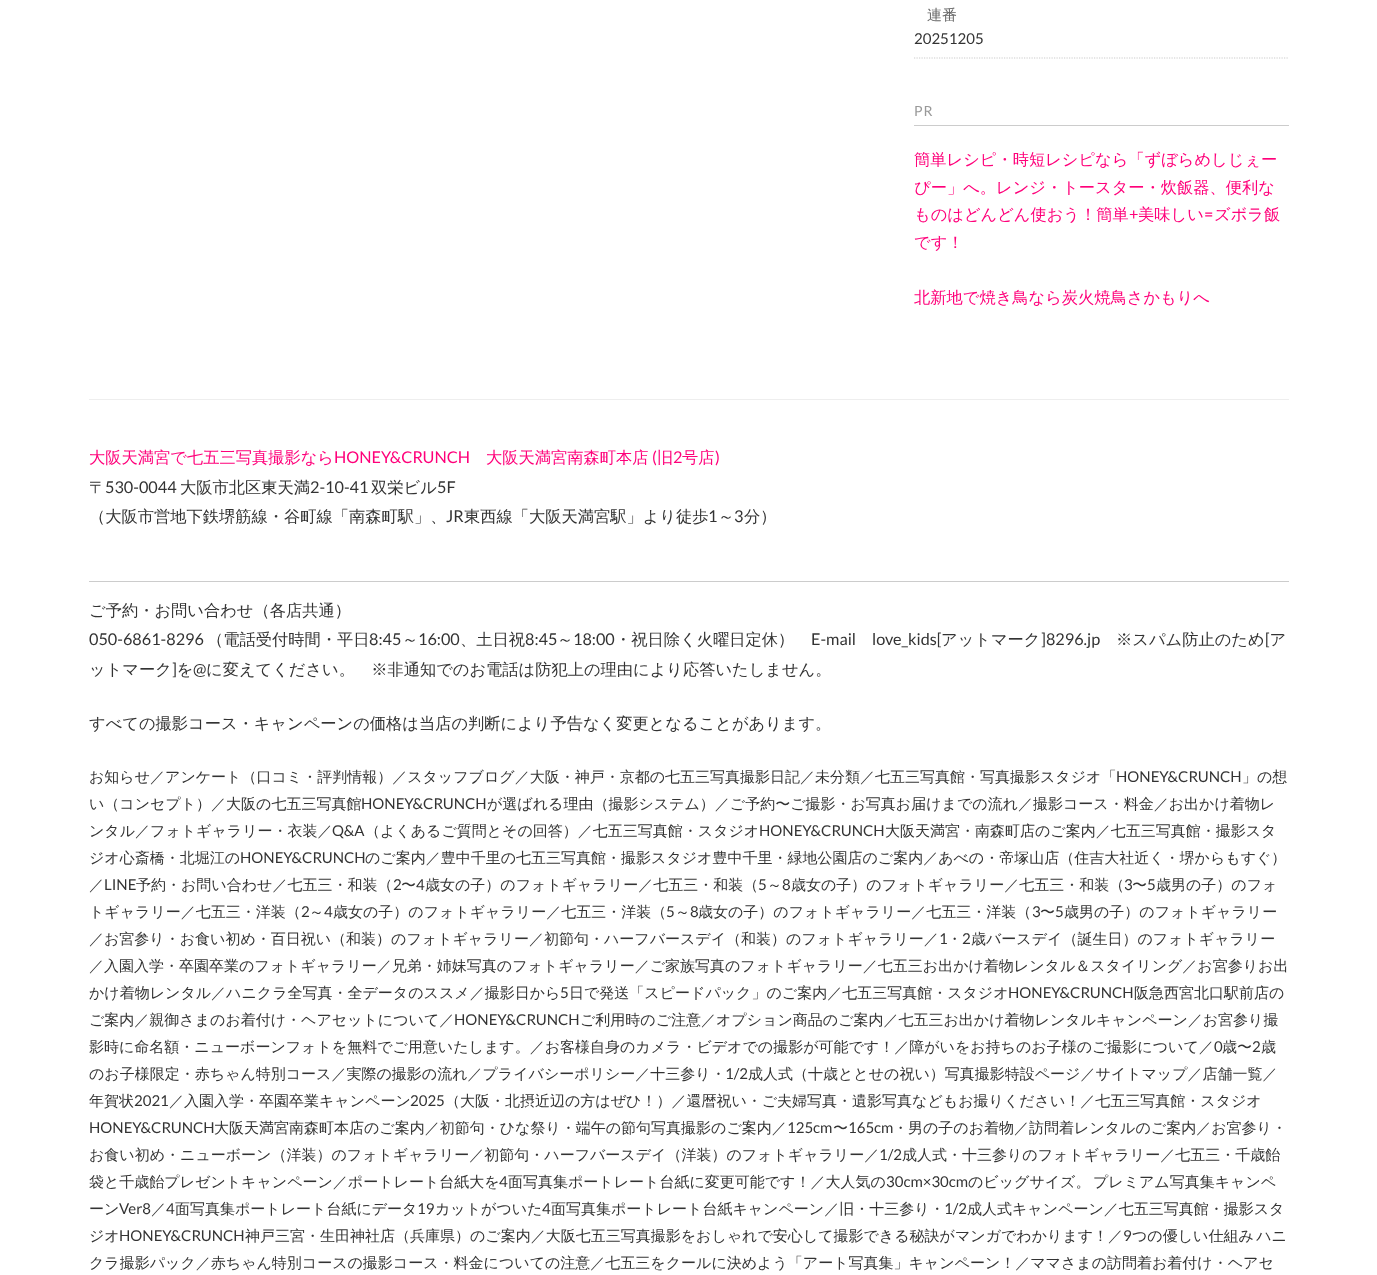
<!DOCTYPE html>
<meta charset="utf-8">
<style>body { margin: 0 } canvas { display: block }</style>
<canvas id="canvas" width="1377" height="1275"></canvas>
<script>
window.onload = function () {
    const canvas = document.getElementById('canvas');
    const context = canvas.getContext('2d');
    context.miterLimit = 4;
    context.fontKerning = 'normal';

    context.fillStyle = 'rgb(255, 255, 255)';
    context.fillRect(0, 0, 1377, 1275);
    context.beginPath();
    context.moveTo(914, 58);
    context.lineTo(1289, 58);
    context.strokeStyle = 'rgb(204, 204, 204)';
    context.lineWidth = 1.2;
    context.setLineDash([1.25, 1.25]);
    context.stroke();
    context.fillStyle = 'rgb(204, 204, 204)';
    context.fillRect(914, 125, 375, 1);
    context.fillStyle = 'rgb(238, 238, 238)';
    context.fillRect(89, 399, 1200, 1);
    context.fillStyle = 'rgb(204, 204, 204)';
    context.fillRect(89, 581, 1200, 1);
    context.font = '500 15px WenQuanYi Zen Hei';
    context.fillStyle = 'rgb(102, 102, 102)';
    context.fillText('連番', 927, 20);
    context.font = '15px Lato';
    context.fillStyle = 'rgb(51, 51, 51)';
    context.fillText('20251205', 914, 44);
    context.letterSpacing = '1px';
    context.font = '14px Lato';
    context.fillStyle = 'rgb(153, 153, 153)';
    context.fillText('PR', 914, 116);
    context.letterSpacing = '0px';
    context.font = '500 16.25px WenQuanYi Zen Hei';
    context.fillStyle = 'rgb(255, 0, 122)';
    context.fillText('簡単レシピ・時短レシピなら「ずぼらめしじぇー', 914, 165);
    context.fillText('ぴー」へ。レンジ・トースター・炊飯器、便利な', 914, 193);
    context.fillText('ものはどんどん使おう！簡単', 914, 220);
    context.font = '16.25px Lato';
    context.fillText('+', 1129, 220);
    context.font = '500 16.25px WenQuanYi Zen Hei';
    context.fillText('美味しい', 1138, 220);
    context.font = '16.25px Lato';
    context.fillText('=', 1204, 220);
    context.font = '500 16.25px WenQuanYi Zen Hei';
    context.fillText('ズボラ飯', 1214, 220);
    context.fillText('です！', 914, 248);
    context.fillText('北新地で焼き鳥なら炭火焼鳥さかもりへ', 914, 303);
    context.fillText('大阪天満宮で七五三写真撮影なら', 89, 463);
    context.font = '16.25px Lato';
    context.fillText('HONEY&CRUNCH', 334, 463);
    context.font = '500 16.25px WenQuanYi Zen Hei';
    context.fillText('大阪天満宮南森町本店', 486, 463);
    context.font = '16.25px Lato';
    context.fillText('(', 652, 463);
    context.font = '500 16.25px WenQuanYi Zen Hei';
    context.fillText('旧', 657, 463);
    context.font = '16.25px Lato';
    context.fillText('2', 673, 463);
    context.font = '500 16.25px WenQuanYi Zen Hei';
    context.fillText('号店', 682, 463);
    context.font = '16.25px Lato';
    context.fillText(')', 715, 463);
    context.font = '500 16.25px WenQuanYi Zen Hei';
    context.fillStyle = 'rgb(51, 51, 51)';
    context.fillText('〒', 89, 493);
    context.font = '16.25px Lato';
    context.fillText('530-0044', 105, 493);
    context.font = '500 16.25px WenQuanYi Zen Hei';
    context.fillText('大阪市北区東天満', 180, 493);
    context.font = '16.25px Lato';
    context.fillText('2-10-41', 310, 493);
    context.font = '500 16.25px WenQuanYi Zen Hei';
    context.fillText('双栄ビル', 371, 493);
    context.font = '16.25px Lato';
    context.fillText('5F', 437, 493);
    context.font = '500 16.25px WenQuanYi Zen Hei';
    context.fillText('（大阪市営地下鉄堺筋線・谷町線「南森町駅」、', 89, 522);
    context.font = '16.25px Lato';
    context.fillText('JR', 446, 522);
    context.font = '500 16.25px WenQuanYi Zen Hei';
    context.fillText('東西線「大阪天満宮駅」より徒歩', 464, 522);
    context.font = '16.25px Lato';
    context.fillText('1', 708, 522);
    context.font = '500 16.25px WenQuanYi Zen Hei';
    context.fillText('～', 718, 522);
    context.font = '16.25px Lato';
    context.fillText('3', 734, 522);
    context.font = '500 16.25px WenQuanYi Zen Hei';
    context.fillText('分）', 744, 522);
    context.fillText('ご予約・お問い合わせ（各店共通）', 89, 616);
    context.fillText('（電話受付時間・平日', 207, 645);
    context.fillText('、土日祝', 460, 645);
    context.fillText('・祝日除く火曜日定休）', 615, 645);
    context.font = '16.25px Lato';
    context.fillText('love_kids[', 872, 645);
    context.fillText(']8296.jp', 1041, 645);
    context.font = '500 16.25px WenQuanYi Zen Hei';
    context.fillText('※スパム防止のため ア', 1116, 645);
    context.font = '16.25px Lato';
    context.fillText('050-6861-8296', 89, 645);
    context.fillText('8:45', 369, 645);
    context.font = '500 16.25px WenQuanYi Zen Hei';
    context.fillText('～', 402, 645);
    context.font = '16.25px Lato';
    context.fillText('16:00', 418, 645);
    context.fillText('8:45', 525, 645);
    context.font = '500 16.25px WenQuanYi Zen Hei';
    context.fillText('～', 557, 645);
    context.font = '16.25px Lato';
    context.fillText('18:00', 573, 645);
    context.fillText('E-mail', 811, 645);
    context.font = '500 16.25px WenQuanYi Zen Hei';
    context.fillText('アットマーク', 941, 645);
    context.font = '16.25px Lato';
    context.fillText('[', 1265, 645);
    context.font = '500 16.25px WenQuanYi Zen Hei';
    context.fillText('ットマーク を', 89, 675);
    context.fillText('に変えてください。　※非通知でのお電話は防犯上の理由により応答いたしません。', 206, 675);
    context.font = '16.25px Lato';
    context.fillText(']', 172, 675);
    context.fillText('@', 193, 675);
    context.font = '500 16.25px WenQuanYi Zen Hei';
    context.fillText('すべての撮影コース・キャンペーンの価格は当店の判断により予告なく変更となることがあります。', 89, 729);
    context.font = '500 15px WenQuanYi Zen Hei';
    context.fillText('お知らせ／アンケート（口コミ・評判情報）／スタッフブログ／大阪・神戸・京都の七五三写真撮影日記／未分類／七五三写真館・写真撮影スタジオ「', 89, 782);
    context.font = '15px Lato';
    context.fillText('HONEY&CRUNCH', 1116, 782);
    context.font = '500 15px WenQuanYi Zen Hei';
    context.fillText('」の想', 1242, 782);
    context.fillText('い（コンセプト）／大阪の七五三写真館', 89, 809);
    context.font = '15px Lato';
    context.fillText('HONEY&CRUNCH', 361, 809);
    context.font = '500 15px WenQuanYi Zen Hei';
    context.fillText('が選ばれる理由（撮影システム）／ご予約〜ご撮影・お写真お届けまでの流れ／撮影コース・料金／お出かけ着物レ', 487, 809);
    context.fillText('ンタル／フォトギャラリー・衣装／', 89, 836);
    context.font = '15px Lato';
    context.fillText('Q&A', 332, 836);
    context.font = '500 15px WenQuanYi Zen Hei';
    context.fillText('（よくあるご質問とその回答）／七五三写真館・スタジオ', 365, 836);
    context.font = '15px Lato';
    context.fillText('HONEY&CRUNCH', 759, 836);
    context.font = '500 15px WenQuanYi Zen Hei';
    context.fillText('大阪天満宮・南森町店のご案内／七五三写真館・撮影スタ', 885, 836);
    context.fillText('ジオ心斎橋・北堀江の', 89, 863);
    context.font = '15px Lato';
    context.fillText('HONEY&CRUNCH', 240, 863);
    context.font = '500 15px WenQuanYi Zen Hei';
    context.fillText('のご案内／豊中千里の七五三写真館・撮影スタジオ豊中千里・緑地公園店のご案内／あべの・帝塚山店（住吉大社近く・堺からもすぐ）', 365, 863);
    context.fillText('／', 89, 890);
    context.font = '15px Lato';
    context.fillText('LINE', 104, 890);
    context.font = '500 15px WenQuanYi Zen Hei';
    context.fillText('予約・お問い合わせ／七五三・和装（', 136, 890);
    context.font = '15px Lato';
    context.fillText('2', 393, 890);
    context.font = '500 15px WenQuanYi Zen Hei';
    context.fillText('〜', 401, 890);
    context.font = '15px Lato';
    context.fillText('4', 416, 890);
    context.font = '500 15px WenQuanYi Zen Hei';
    context.fillText('歳女の子）のフォトギャラリー／七五三・和装（', 425, 890);
    context.font = '15px Lato';
    context.fillText('5', 758, 890);
    context.font = '500 15px WenQuanYi Zen Hei';
    context.fillText('～', 767, 890);
    context.font = '15px Lato';
    context.fillText('8', 782, 890);
    context.font = '500 15px WenQuanYi Zen Hei';
    context.fillText('歳女の子）のフォトギャラリー／七五三・和装（', 791, 890);
    context.font = '15px Lato';
    context.fillText('3', 1124, 890);
    context.font = '500 15px WenQuanYi Zen Hei';
    context.fillText('〜', 1132, 890);
    context.font = '15px Lato';
    context.fillText('5', 1147, 890);
    context.font = '500 15px WenQuanYi Zen Hei';
    context.fillText('歳男の子）のフォ', 1156, 890);
    context.fillText('トギャラリー／七五三・洋装（', 89, 917);
    context.font = '15px Lato';
    context.fillText('2', 301, 917);
    context.font = '500 15px WenQuanYi Zen Hei';
    context.fillText('～', 309, 917);
    context.font = '15px Lato';
    context.fillText('4', 324, 917);
    context.font = '500 15px WenQuanYi Zen Hei';
    context.fillText('歳女の子）のフォトギャラリー／七五三・洋装（', 333, 917);
    context.font = '15px Lato';
    context.fillText('5', 666, 917);
    context.font = '500 15px WenQuanYi Zen Hei';
    context.fillText('～', 675, 917);
    context.font = '15px Lato';
    context.fillText('8', 690, 917);
    context.font = '500 15px WenQuanYi Zen Hei';
    context.fillText('歳女の子）のフォトギャラリー／七五三・洋装（', 698, 917);
    context.font = '15px Lato';
    context.fillText('3', 1032, 917);
    context.font = '500 15px WenQuanYi Zen Hei';
    context.fillText('〜', 1040, 917);
    context.font = '15px Lato';
    context.fillText('5', 1055, 917);
    context.font = '500 15px WenQuanYi Zen Hei';
    context.fillText('歳男の子）のフォトギャラリー', 1064, 917);
    context.fillText('／お宮参り・お食い初め・百日祝い（和装）のフォトギャラリー／初節句・ハーフバースデイ（和装）のフォトギャラリー／', 89, 944);
    context.font = '15px Lato';
    context.fillText('1', 939, 944);
    context.font = '500 15px WenQuanYi Zen Hei';
    context.fillText('・', 947, 944);
    context.font = '15px Lato';
    context.fillText('2', 962, 944);
    context.font = '500 15px WenQuanYi Zen Hei';
    context.fillText('歳バースデイ（誕生日）のフォトギャラリー', 971, 944);
    context.fillText('／入園入学・卒園卒業のフォトギャラリー／兄弟・姉妹写真のフォトギャラリー／ご家族写真のフォトギャラリー／七五三お出かけ着物レンタル＆スタイリング／お宮参りお出', 89, 971);
    context.fillText('かけ着物レンタル／ハニクラ全写真・全データのススメ／撮影日から', 89, 998);
    context.font = '15px Lato';
    context.fillText('5', 560, 998);
    context.font = '500 15px WenQuanYi Zen Hei';
    context.fillText('日で発送「スピードパック」のご案内／七五三写真館・スタジオ', 569, 998);
    context.font = '15px Lato';
    context.fillText('HONEY&CRUNCH', 1008, 998);
    context.font = '500 15px WenQuanYi Zen Hei';
    context.fillText('阪急西宮北口駅前店の', 1134, 998);
    context.fillText('ご案内／親御さまのお着付け・ヘアセットについて／', 89, 1025);
    context.font = '15px Lato';
    context.fillText('HONEY&CRUNCH', 454, 1025);
    context.font = '500 15px WenQuanYi Zen Hei';
    context.fillText('ご利用時のご注意／オプション商品のご案内／七五三お出かけ着物レンタルキャンペーン／お宮参り撮', 580, 1025);
    context.fillText('影時に命名額・ニューボーンフォトを無料でご用意いたします。／お客様自身のカメラ・ビデオでの撮影が可能です！／障がいをお持ちのお子様のご撮影について／', 89, 1052);
    context.font = '15px Lato';
    context.fillText('0', 1214, 1052);
    context.font = '500 15px WenQuanYi Zen Hei';
    context.fillText('歳〜', 1222, 1052);
    context.font = '15px Lato';
    context.fillText('2', 1252, 1052);
    context.font = '500 15px WenQuanYi Zen Hei';
    context.fillText('歳', 1261, 1052);
    context.fillText('のお子様限定・赤ちゃん特別コース／実際の撮影の流れ／プライバシーポリシー／十三参り・', 89, 1079);
    context.font = '15px Lato';
    context.fillText('1/2', 725, 1079);
    context.font = '500 15px WenQuanYi Zen Hei';
    context.fillText('成人式（十歳ととせの祝い）写真撮影特設ページ／サイトマップ／店舗一覧／', 748, 1079);
    context.fillText('年賀状', 89, 1106);
    context.font = '15px Lato';
    context.fillText('2021', 134, 1106);
    context.font = '500 15px WenQuanYi Zen Hei';
    context.fillText('／入園入学・卒園卒業キャンペーン', 169, 1106);
    context.font = '15px Lato';
    context.fillText('2025', 410, 1106);
    context.font = '500 15px WenQuanYi Zen Hei';
    context.fillText('（大阪・北摂近辺の方はぜひ！）／還暦祝い・ご夫婦写真・遺影写真などもお撮りください！／七五三写真館・スタジオ', 445, 1106);
    context.font = '15px Lato';
    context.fillText('HONEY&CRUNCH', 89, 1133);
    context.font = '500 15px WenQuanYi Zen Hei';
    context.fillText('大阪天満宮南森町本店のご案内／初節句・ひな祭り・端午の節句写真撮影のご案内／', 214, 1133);
    context.font = '15px Lato';
    context.fillText('125cm', 787, 1133);
    context.font = '500 15px WenQuanYi Zen Hei';
    context.fillText('〜', 833, 1133);
    context.font = '15px Lato';
    context.fillText('165cm', 848, 1133);
    context.font = '500 15px WenQuanYi Zen Hei';
    context.fillText('・男の子のお着物／訪問着レンタルのご案内／お宮参り・', 893, 1133);
    context.fillText('お食い初め・ニューボーン（洋装）のフォトギャラリー／初節句・ハーフバースデイ（洋装）のフォトギャラリー／', 89, 1160);
    context.font = '15px Lato';
    context.fillText('1/2', 879, 1160);
    context.font = '500 15px WenQuanYi Zen Hei';
    context.fillText('成人式・十三参りのフォトギャラリー／七五三・千歳飴', 902, 1160);
    context.fillText('袋と千歳飴プレゼントキャンペーン／ポートレート台紙大を', 89, 1187);
    context.font = '15px Lato';
    context.fillText('4', 499, 1187);
    context.font = '500 15px WenQuanYi Zen Hei';
    context.fillText('面写真集ポートレート台紙に変更可能です！／大人気の', 508, 1187);
    context.font = '15px Lato';
    context.fillText('30cm×30cm', 886, 1187);
    context.wordSpacing = '-2px';
    context.font = '500 15px WenQuanYi Zen Hei';
    context.fillText('のビッグサイズ。 プレミアム写真集キャンペ', 968, 1187);
    context.wordSpacing = '0px';
    context.fillText('ーン', 89, 1214);
    context.font = '15px Lato';
    context.fillText('Ver8', 119, 1214);
    context.font = '500 15px WenQuanYi Zen Hei';
    context.fillText('／', 151, 1214);
    context.font = '15px Lato';
    context.fillText('4', 166, 1214);
    context.font = '500 15px WenQuanYi Zen Hei';
    context.fillText('面写真集ポートレート台紙にデータ', 175, 1214);
    context.font = '15px Lato';
    context.fillText('19', 417, 1214);
    context.font = '500 15px WenQuanYi Zen Hei';
    context.fillText('カットがついた', 435, 1214);
    context.font = '15px Lato';
    context.fillText('4', 542, 1214);
    context.font = '500 15px WenQuanYi Zen Hei';
    context.fillText('面写真集ポートレート台紙キャンペーン／旧・十三参り・', 551, 1214);
    context.font = '15px Lato';
    context.fillText('1/2', 944, 1214);
    context.font = '500 15px WenQuanYi Zen Hei';
    context.fillText('成人式キャンペーン／七五三写真館・撮影スタ', 967, 1214);
    context.fillText('ジオ', 89, 1241);
    context.font = '15px Lato';
    context.fillText('HONEY&CRUNCH', 119, 1241);
    context.font = '500 15px WenQuanYi Zen Hei';
    context.fillText('神戸三宮・生田神社店（兵庫県）のご案内／大阪七五三写真撮影をおしゃれで安心して撮影できる秘訣がマンガでわかります！／', 245, 1241);
    context.font = '15px Lato';
    context.fillText('9', 1123, 1241);
    context.wordSpacing = '-2px';
    context.font = '500 15px WenQuanYi Zen Hei';
    context.fillText('つの優しい仕組み ハニ', 1132, 1241);
    context.wordSpacing = '0px';
    context.fillText('クラ撮影パック／赤ちゃん特別コースの撮影コース・料金についての注意／七五三をクールに決めよう「アート写真集」キャンペーン！／ママさまの訪問着お着付け・ヘアセ', 89, 1268);
};
</script>
